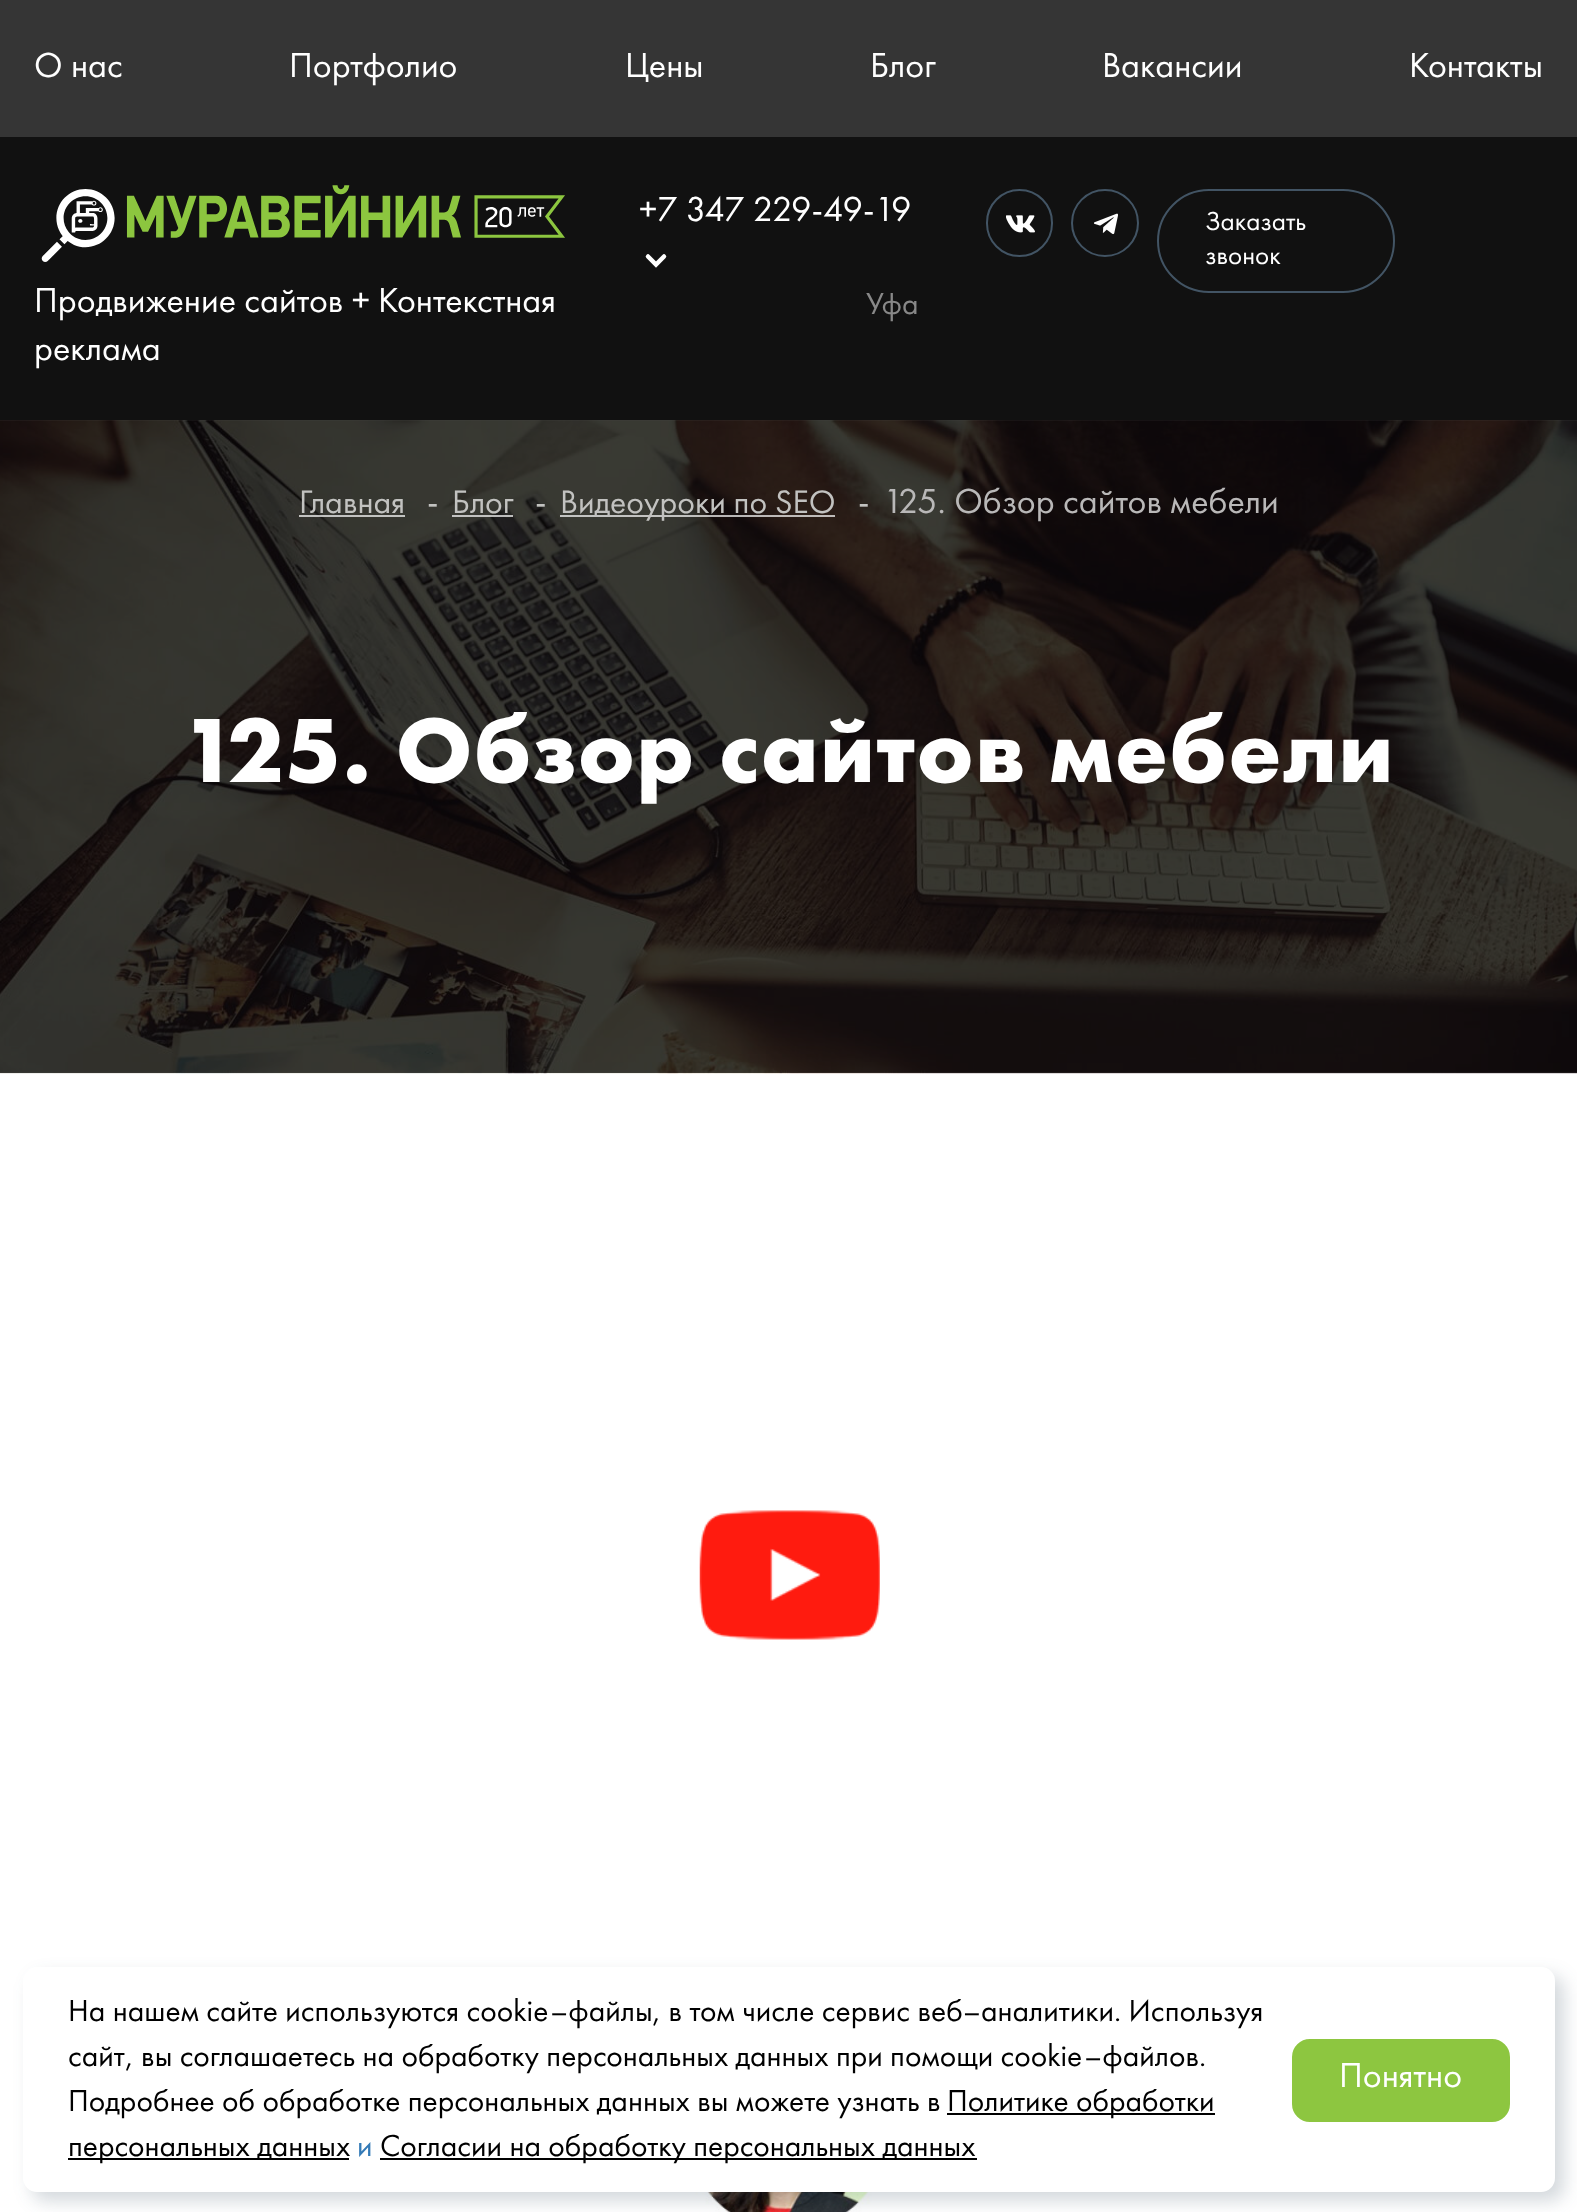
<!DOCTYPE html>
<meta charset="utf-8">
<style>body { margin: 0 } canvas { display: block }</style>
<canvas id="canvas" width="1577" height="2212"></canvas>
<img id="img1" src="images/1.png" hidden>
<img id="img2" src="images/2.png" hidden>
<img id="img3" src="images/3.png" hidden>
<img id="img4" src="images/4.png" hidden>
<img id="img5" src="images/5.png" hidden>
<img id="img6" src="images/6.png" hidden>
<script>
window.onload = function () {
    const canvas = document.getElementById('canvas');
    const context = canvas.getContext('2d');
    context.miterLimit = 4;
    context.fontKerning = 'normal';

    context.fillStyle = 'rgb(255, 255, 255)';
    context.fillRect(0, 0, 1577, 2212);
    context.fillStyle = 'rgb(17, 17, 17)';
    context.fillRect(0, 137, 1577, 284);
    context.fillStyle = 'rgb(53, 53, 53)';
    context.fillRect(0, 0, 1577, 137);
    context.drawImage(document.getElementById('img1'), 41, 185, 524, 77);
    context.beginPath();
    context.moveTo(648, 256.5);
    context.lineTo(656, 264.5);
    context.lineTo(664, 256.5);
    context.strokeStyle = 'rgb(255, 255, 255)';
    context.lineWidth = 4.5;
    context.lineCap = 'round';
    context.stroke();
    context.beginPath();
    context.roundRect(987, 190, 65, 66, 32.5);
    context.strokeStyle = 'rgb(66, 84, 100)';
    context.lineWidth = 2;
    context.stroke();
    context.drawImage(document.getElementById('img2'), 1006, 215, 29, 18);
    context.beginPath();
    context.arc(1105, 223, 33, 0, 2 * Math.PI);
    context.stroke();
    context.drawImage(document.getElementById('img3'), 1094, 213, 24, 22);
    context.beginPath();
    context.roundRect(1158, 190, 236, 102, 51);
    context.stroke();
    context.drawImage(document.getElementById('img4'), 0, 420, 1577, 654);
    context.fillStyle = 'rgba(255, 255, 255, 0.7)';
    context.fillRect(299, 515, 106, 2);
    context.fillRect(452, 515, 61, 2);
    context.fillRect(560, 515, 275, 2);
    context.drawImage(document.getElementById('img5'), 699, 1510, 181, 130);
    context.drawImage(document.getElementById('img6'), 687, 2192, 202, 20);
    context.fillStyle = 'rgba(34, 60, 80, 0.2)';
    context.filter = 'blur(9px)';
    context.beginPath();
    context.roundRect(32, 1976, 1532, 225, 14);
    context.fill();
    context.filter = 'none';
    context.fillStyle = 'rgb(255, 255, 255)';
    context.beginPath();
    context.roundRect(23, 1967, 1532, 225, 14);
    context.fill();
    context.fillStyle = 'rgb(0, 0, 0)';
    context.fillRect(947, 2113, 268, 2);
    context.fillRect(68, 2158, 281, 2);
    context.fillRect(380, 2158, 597, 2);
    context.fillStyle = 'rgb(141, 198, 64)';
    context.beginPath();
    context.roundRect(1293, 2040, 216, 81, 17);
    context.fill();
    context.strokeStyle = 'rgb(141, 198, 64)';
    context.stroke();
    context.font = '36px Futura PT';
    context.fillStyle = 'rgb(255, 255, 255)';
    context.fillText('О нас', 34, 77);
    context.fillText('Портфолио', 289, 77);
    context.fillText('Цены', 625, 77);
    context.fillText('Блог', 870, 77);
    context.fillText('Вакансии', 1102, 77);
    context.fillText('Контакты', 1409, 77);
    context.fillText('Продвижение сайтов + Контекстная', 34, 312);
    context.fillText('реклама', 34, 360);
    context.fillText('+7 347 229-49-19', 639, 221);
    context.font = '31.5px Futura PT';
    context.fillStyle = 'rgb(136, 136, 136)';
    context.fillText('Уфа', 866, 314);
    context.font = '27px Futura PT';
    context.fillStyle = 'rgb(255, 255, 255)';
    context.fillText('Заказать', 1205, 230);
    context.fillText('звонок', 1205, 264);
    context.font = '33.75px Futura PT';
    context.fillStyle = 'rgb(194, 194, 192)';
    context.fillText('Главная', 299, 513);
    context.font = '36px Futura PT';
    context.fillText('-', 427, 513);
    context.font = '33.75px Futura PT';
    context.fillText('Блог', 452, 513);
    context.font = '36px Futura PT';
    context.fillText('-', 535, 513);
    context.font = '33.75px Futura PT';
    context.fillText('Видеоуроки по SEO', 560, 513);
    context.font = '36px Futura PT';
    context.fillText('-', 858, 513);
    context.fillStyle = 'rgb(185, 184, 184)';
    context.fillText('125. Обзор сайтов мебели', 883, 513);
    context.letterSpacing = '1.1px';
    context.font = 'bold 94.5px Futura PT';
    context.fillStyle = 'rgb(255, 255, 255)';
    context.fillText('125. Обзор сайтов мебели', 181, 782);
    context.letterSpacing = '0px';
    context.font = '31.5px Futura PT';
    context.fillStyle = 'rgb(0, 0, 0)';
    context.fillText('На нашем сайте используются cookie–файлы, в том числе сервис веб–аналитики. Используя', 68, 2021);
    context.fillText('сайт, вы соглашаетесь на обработку персональных данных при помощи cookie–файлов.', 68, 2066);
    context.fillText('Подробнее об обработке персональных данных вы можете узнать в', 68, 2111);
    context.fillText('Политике обработки', 947, 2111);
    context.fillText('персональных данных', 68, 2156);
    context.fillStyle = 'rgb(51, 122, 183)';
    context.fillText('и', 357, 2156);
    context.fillStyle = 'rgb(0, 0, 0)';
    context.fillText('Согласии на обработку персональных данных', 380, 2156);
    context.font = '36px Futura PT';
    context.fillStyle = 'rgb(255, 255, 255)';
    context.fillText('Понятно', 1339, 2087);
};
</script>
